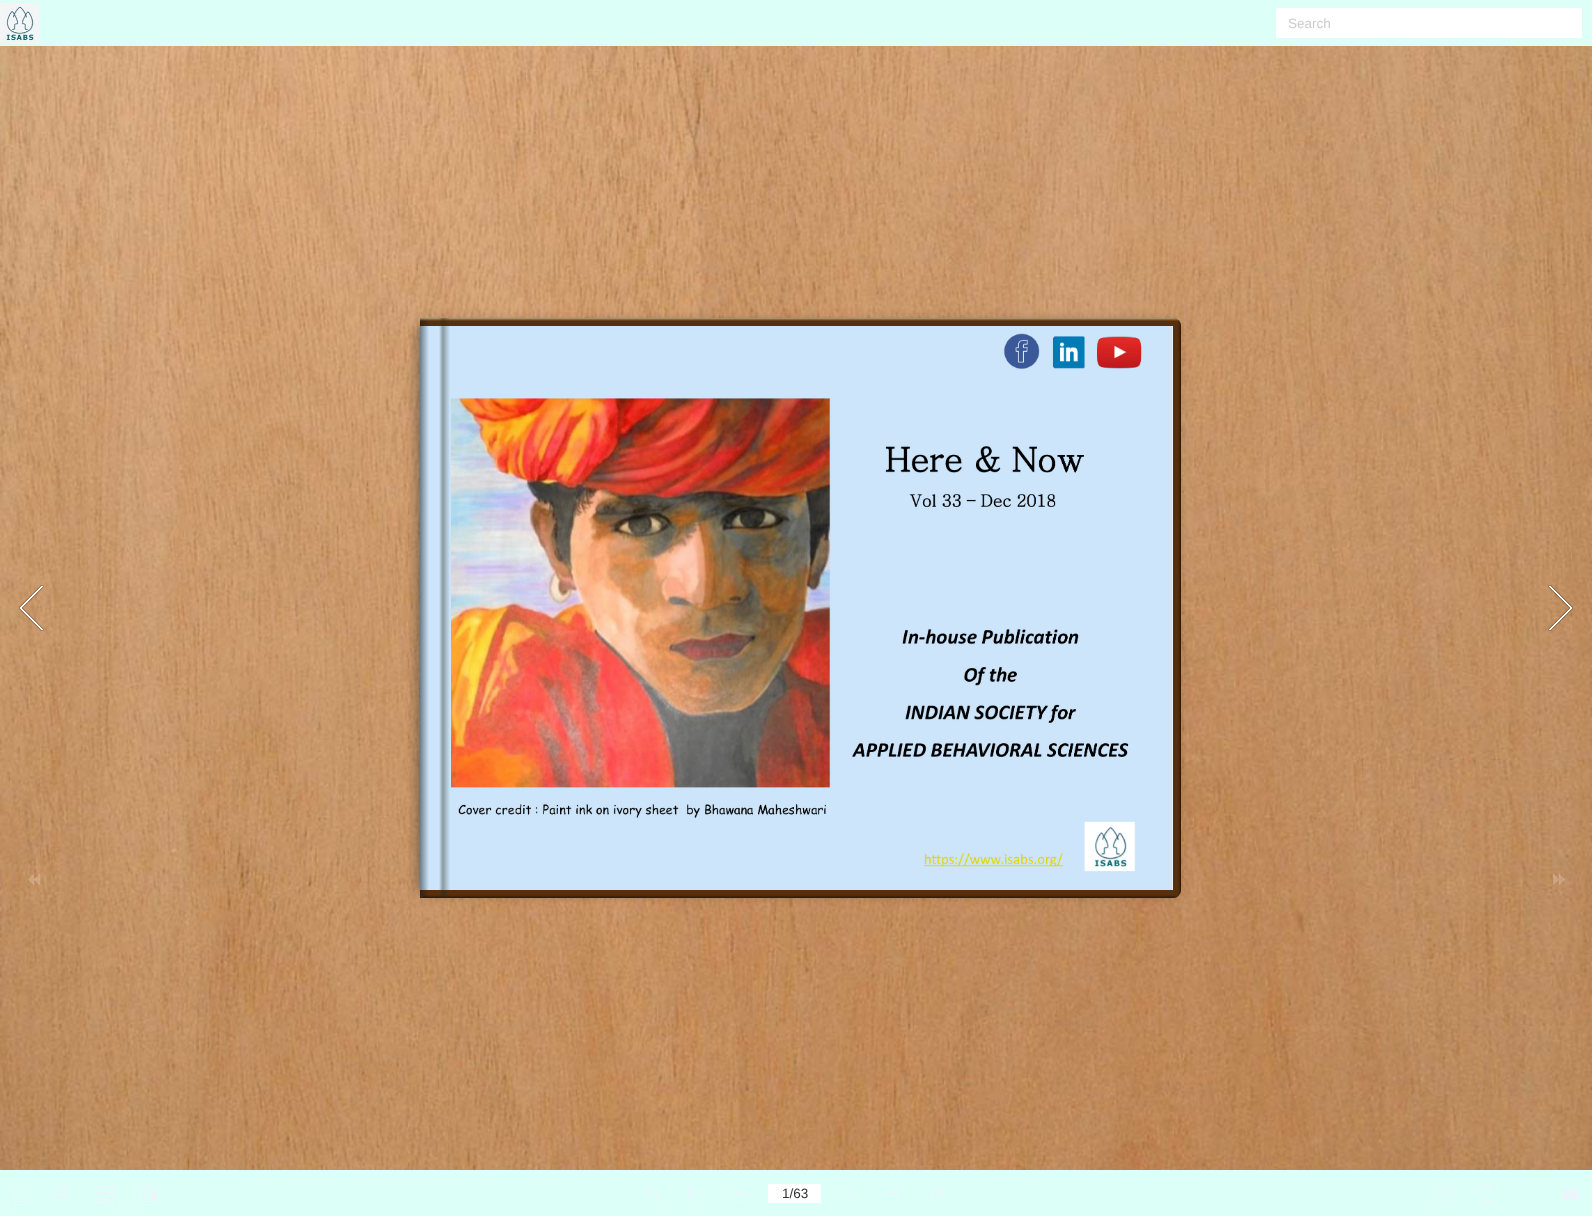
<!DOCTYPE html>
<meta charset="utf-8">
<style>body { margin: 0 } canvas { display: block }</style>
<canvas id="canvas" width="1592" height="1216"></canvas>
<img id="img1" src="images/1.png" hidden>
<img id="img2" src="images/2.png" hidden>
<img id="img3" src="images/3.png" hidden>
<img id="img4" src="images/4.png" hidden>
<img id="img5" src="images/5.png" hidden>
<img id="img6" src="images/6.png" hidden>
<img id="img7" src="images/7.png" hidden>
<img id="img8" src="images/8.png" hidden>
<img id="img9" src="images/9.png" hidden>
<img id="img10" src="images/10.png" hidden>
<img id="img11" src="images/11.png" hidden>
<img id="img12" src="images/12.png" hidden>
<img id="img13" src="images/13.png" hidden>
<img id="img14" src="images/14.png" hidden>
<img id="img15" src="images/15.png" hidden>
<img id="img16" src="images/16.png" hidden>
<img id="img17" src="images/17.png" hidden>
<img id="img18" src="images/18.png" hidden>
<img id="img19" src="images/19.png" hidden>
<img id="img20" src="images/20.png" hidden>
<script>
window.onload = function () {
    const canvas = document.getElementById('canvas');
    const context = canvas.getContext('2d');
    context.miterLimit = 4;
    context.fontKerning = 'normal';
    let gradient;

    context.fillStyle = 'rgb(255, 255, 255)';
    context.fillRect(0, 0, 1592, 1216);
    context.fillStyle = 'rgb(220, 255, 247)';
    context.fillRect(0, 0, 1592, 46);
    context.drawImage(document.getElementById('img1'), 0, 3, 39, 40);
    context.fillStyle = 'rgb(255, 255, 255)';
    context.fillRect(1276, 8, 306, 30);
    context.drawImage(document.getElementById('img2'), 0, 46, 1592, 1124);
    context.drawImage(document.getElementById('img3'), 19, 585, 25, 46);
    context.fillStyle = 'rgba(40, 40, 40, 0.7)';
    context.filter = 'blur(7.5px)';
    context.beginPath();
    context.rect(420, 326, 753, 564);
    context.fill();
    context.filter = 'none';
    context.fillStyle = 'rgb(87, 47, 13)';
    context.beginPath();
    context.roundRect(420, 318, 761, 580, [0, 8, 8, 0]);
    context.fill();
    context.fillStyle = 'rgb(255, 255, 255)';
    context.fillRect(1172, 326, 1, 564);
    context.drawImage(document.getElementById('img4'), 420, 326, 753, 564);
    gradient = context.createLinearGradient(420, 608, 429, 608);
    gradient.addColorStop(0, 'rgba(20, 20, 20, 0.5)');
    gradient.addColorStop(1, 'rgba(20, 20, 20, 0)');
    context.fillStyle = gradient;
    context.fillRect(420, 318, 9, 580);
    context.save();
    context.beginPath();
    context.roundRect(420, 318, 761, 580, [0, 8, 8, 0]);
    context.clip();
    gradient = context.createLinearGradient(800, 318, 800, 321);
    gradient.addColorStop(0, 'rgba(240, 240, 200, 0.6)');
    gradient.addColorStop(1, 'rgba(240, 240, 200, 0)');
    context.fillStyle = gradient;
    context.fillRect(420, 318, 761, 3);
    gradient = context.createLinearGradient(802, 898, 802, 895);
    gradient.addColorStop(0, 'rgba(0, 0, 0, 0.5)');
    gradient.addColorStop(1, 'rgba(0, 0, 0, 0)');
    context.fillStyle = gradient;
    context.fillRect(423, 895, 758, 3);
    context.restore();
    gradient = context.createLinearGradient(439, 608, 450, 608);
    gradient.addColorStop(0, 'rgba(40, 40, 20, 0)');
    gradient.addColorStop(0.35, 'rgba(40, 40, 20, 0.4)');
    gradient.addColorStop(1, 'rgba(40, 40, 20, 0)');
    context.fillStyle = gradient;
    context.fillRect(439, 318, 11, 580);
    context.save();
    context.beginPath();
    context.roundRect(420, 318, 761, 580, [0, 8, 8, 0]);
    context.clip();
    gradient = context.createLinearGradient(1181, 608, 1178, 608);
    gradient.addColorStop(0, 'rgba(0, 0, 0, 0.5)');
    gradient.addColorStop(1, 'rgba(0, 0, 0, 0)');
    context.fillStyle = gradient;
    context.fillRect(1178, 319, 3, 577);
    context.restore();
    context.drawImage(document.getElementById('img5'), 1548, 585, 25, 46);
    context.drawImage(document.getElementById('img6'), 28, 874, 12, 11);
    context.drawImage(document.getElementById('img7'), 1553, 874, 12, 11);
    context.fillStyle = 'rgb(220, 255, 247)';
    context.fillRect(0, 1170, 1592, 46);
    context.drawImage(document.getElementById('img8'), 13, 1186, 16, 16);
    context.drawImage(document.getElementById('img9'), 55, 1186, 16, 16);
    context.drawImage(document.getElementById('img10'), 97, 1186, 16, 16);
    context.drawImage(document.getElementById('img11'), 139, 1186, 16, 16);
    context.drawImage(document.getElementById('img12'), 645, 1186, 13, 16);
    context.drawImage(document.getElementById('img13'), 688, 1187, 16, 15);
    context.drawImage(document.getElementById('img14'), 734, 1187, 15, 15);
    context.fillStyle = 'rgb(255, 255, 255)';
    context.fillRect(768, 1184, 53, 19);
    context.drawImage(document.getElementById('img15'), 840, 1187, 15, 15);
    context.drawImage(document.getElementById('img16'), 884, 1187, 16, 15);
    context.drawImage(document.getElementById('img17'), 931, 1186, 13, 16);
    context.drawImage(document.getElementById('img18'), 1439, 1186, 13, 17);
    context.drawImage(document.getElementById('img19'), 1479, 1186, 16, 16);
    context.drawImage(document.getElementById('img20'), 1563, 1188, 16, 12);
    context.font = '13.5px Liberation Sans';
    context.fillStyle = 'rgb(204, 204, 204)';
    context.fillText('Search', 1288, 28);
    context.fillStyle = 'rgb(51, 51, 51)';
    context.fillText('1/63', 782, 1198);
};
</script>
